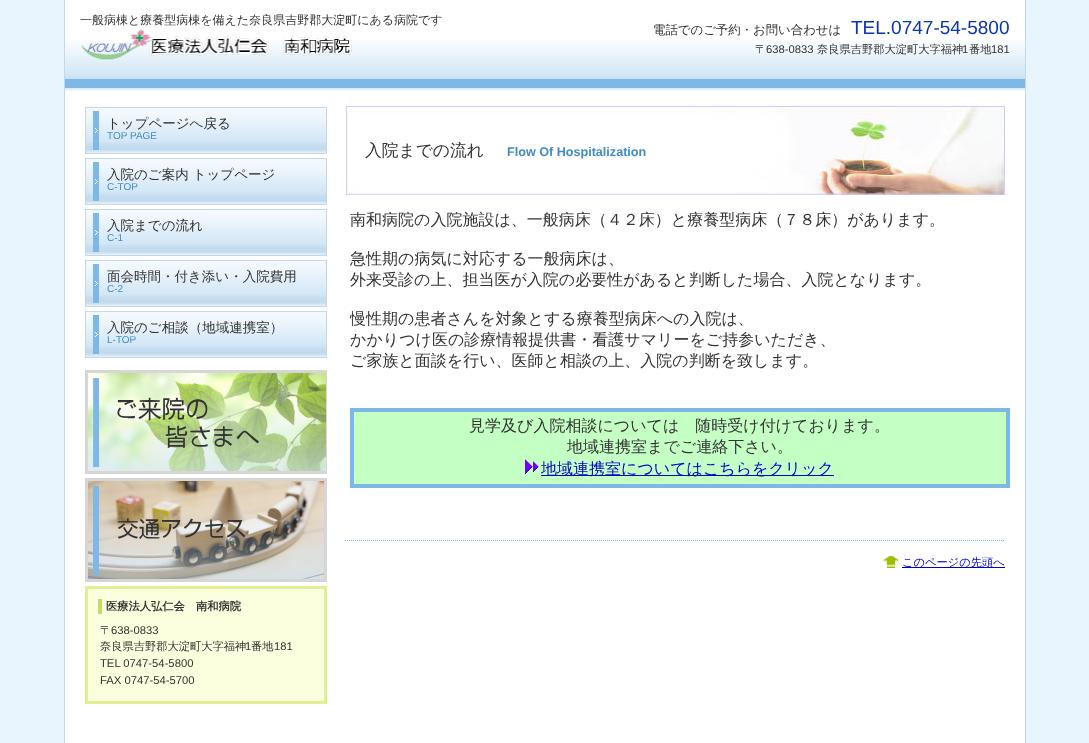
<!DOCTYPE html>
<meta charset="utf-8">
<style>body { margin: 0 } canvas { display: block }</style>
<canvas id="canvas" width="1089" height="743"></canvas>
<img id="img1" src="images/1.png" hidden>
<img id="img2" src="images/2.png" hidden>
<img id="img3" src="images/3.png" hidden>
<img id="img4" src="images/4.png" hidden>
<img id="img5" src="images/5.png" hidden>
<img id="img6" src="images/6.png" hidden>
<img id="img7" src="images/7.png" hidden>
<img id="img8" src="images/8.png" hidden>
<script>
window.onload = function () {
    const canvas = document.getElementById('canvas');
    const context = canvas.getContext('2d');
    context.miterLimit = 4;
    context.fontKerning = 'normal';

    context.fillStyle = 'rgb(232, 244, 254)';
    context.fillRect(0, 0, 1089, 743);
    context.fillStyle = 'rgb(255, 255, 255)';
    context.fillRect(65, 0, 960, 743);
    context.fillStyle = 'rgb(195, 216, 233)';
    context.fillRect(1025, 0, 1, 743);
    context.fillRect(64, 0, 1, 743);
    context.drawImage(document.getElementById('img1'), 65, 40, 960, 51);
    context.drawImage(document.getElementById('img2'), 81, 29, 271, 31);
    context.drawImage(document.getElementById('img3'), 85, 107, 242, 47);
    context.drawImage(document.getElementById('img3'), 85, 158, 242, 47);
    context.drawImage(document.getElementById('img3'), 85, 209, 242, 47);
    context.drawImage(document.getElementById('img3'), 85, 260, 242, 47);
    context.drawImage(document.getElementById('img3'), 85, 311, 242, 47);
    context.drawImage(document.getElementById('img4'), 345, 106, 660, 89);
    context.fillStyle = 'rgb(196, 255, 196)';
    context.beginPath();
    context.rect(352, 410, 656, 76);
    context.fill();
    context.strokeStyle = 'rgb(125, 184, 231)';
    context.lineWidth = 4;
    context.stroke();
    context.drawImage(document.getElementById('img5'), 525, 459, 14, 15);
    context.fillStyle = 'rgb(0, 0, 204)';
    context.fillRect(541, 475, 293, 1);
    context.beginPath();
    context.moveTo(345, 540.5);
    context.lineTo(1005, 540.5);
    context.lineWidth = 1;
    context.setLineDash([1, 1]);
    context.stroke();
    context.drawImage(document.getElementById('img6'), 882, 556, 18, 12);
    context.fillRect(902, 567, 103, 1);
    context.drawImage(document.getElementById('img7'), 85, 370, 242, 104);
    context.drawImage(document.getElementById('img8'), 85, 478, 242, 104);
    context.fillStyle = 'rgb(251, 255, 222)';
    context.beginPath();
    context.rect(86.5, 587.5, 239, 115);
    context.fill();
    context.strokeStyle = 'rgb(223, 240, 144)';
    context.lineWidth = 3;
    context.setLineDash([]);
    context.stroke();
    context.fillStyle = 'rgb(199, 221, 96)';
    context.fillRect(98, 599, 4, 15);
    context.font = '500 12px WenQuanYi Zen Hei';
    context.fillStyle = 'rgb(51, 51, 51)';
    context.fillText('一般病棟と療養型病棟を備えた奈良県吉野郡大淀町にある病院です', 80, 24);
    context.font = '500 12.4px WenQuanYi Zen Hei';
    context.fillText('電話でのご予約・お問い合わせは', 653, 34);
    context.font = '19px Liberation Sans';
    context.fillStyle = 'rgb(9, 53, 177)';
    context.fillText('TEL.0747-54-5800', 851, 34);
    context.font = '500 11.25px WenQuanYi Zen Hei';
    context.fillStyle = 'rgb(51, 51, 51)';
    context.fillText('〒', 755, 53);
    context.font = '11.25px Liberation Sans';
    context.fillText('638-0833', 766, 53);
    context.font = '500 11.25px WenQuanYi Zen Hei';
    context.fillText('奈良県吉野郡大淀町大字福神', 817, 53);
    context.font = '11.25px Liberation Sans';
    context.fillText('1', 962, 53);
    context.font = '500 11.25px WenQuanYi Zen Hei';
    context.fillText('番地', 969, 53);
    context.font = '11.25px Liberation Sans';
    context.fillText('181', 991, 53);
    context.font = '500 13.5px WenQuanYi Zen Hei';
    context.fillText('トップページへ戻る', 107, 128);
    context.font = '10px Liberation Sans';
    context.fillStyle = 'rgb(66, 140, 196)';
    context.fillText('TOP PAGE', 107, 139);
    context.font = '500 13.5px WenQuanYi Zen Hei';
    context.fillStyle = 'rgb(51, 51, 51)';
    context.fillText('入院のご案内 トップページ', 107, 179);
    context.font = '10px Liberation Sans';
    context.fillStyle = 'rgb(66, 140, 196)';
    context.fillText('C-TOP', 107, 190);
    context.font = '500 13.5px WenQuanYi Zen Hei';
    context.fillStyle = 'rgb(51, 51, 51)';
    context.fillText('入院までの流れ', 107, 230);
    context.font = '10px Liberation Sans';
    context.fillStyle = 'rgb(66, 140, 196)';
    context.fillText('C-1', 107, 241);
    context.font = '500 13.5px WenQuanYi Zen Hei';
    context.fillStyle = 'rgb(51, 51, 51)';
    context.fillText('面会時間・付き添い・入院費用', 107, 281);
    context.font = '10px Liberation Sans';
    context.fillStyle = 'rgb(66, 140, 196)';
    context.fillText('C-2', 107, 292);
    context.font = '500 13.5px WenQuanYi Zen Hei';
    context.fillStyle = 'rgb(51, 51, 51)';
    context.fillText('入院のご相談（地域連携室）', 107, 332);
    context.font = '10px Liberation Sans';
    context.fillStyle = 'rgb(66, 140, 196)';
    context.fillText('L-TOP', 107, 343);
    context.font = '500 16.75px WenQuanYi Zen Hei';
    context.fillStyle = 'rgb(51, 51, 51)';
    context.fillText('入院までの流れ', 365, 156);
    context.font = 'bold 12.6px Liberation Sans';
    context.fillStyle = 'rgb(66, 140, 196)';
    context.fillText('Flow Of Hospitalization', 507, 156);
    context.font = '500 16px WenQuanYi Zen Hei';
    context.fillStyle = 'rgb(51, 51, 51)';
    context.fillText('南和病院の入院施設は、一般病床（４２床）と療養型病床（７８床）があります。', 350, 225);
    context.fillText('急性期の病気に対応する一般病床は、', 350, 264);
    context.fillText('外来受診の上、担当医が入院の必要性があると判断した場合、入院となります。', 350, 285);
    context.fillText('慢性期の患者さんを対象とする療養型病床への入院は、', 350, 324);
    context.fillText('かかりつけ医の診療情報提供書・看護サマリーをご持参いただき、', 350, 345);
    context.fillText('ご家族と面談を行い、医師と相談の上、入院の判断を致します。', 350, 366);
    context.fillText('見学及び入院相談については　随時受け付けております。', 469, 431);
    context.fillText('地域連携室までご連絡下さい。', 567, 452);
    context.fillStyle = 'rgb(0, 0, 204)';
    context.fillText('地域連携室についてはこちらをクリック', 541, 474);
    context.font = '500 11.25px WenQuanYi Zen Hei';
    context.fillText('このページの先頭へ', 902, 566);
    context.font = 'bold 11.25px WenQuanYi Zen Hei';
    context.fillStyle = 'rgb(51, 51, 51)';
    context.fillText('医療法人弘仁会　南和病院', 106, 610);
    context.font = '500 11.25px WenQuanYi Zen Hei';
    context.fillText('〒', 100, 634);
    context.font = '11.25px Liberation Sans';
    context.fillText('638-0833', 111, 634);
    context.font = '500 11.25px WenQuanYi Zen Hei';
    context.fillText('奈良県吉野郡大淀町大字福神', 100, 650);
    context.font = '11.25px Liberation Sans';
    context.fillText('1', 245, 650);
    context.font = '500 11.25px WenQuanYi Zen Hei';
    context.fillText('番地', 251, 650);
    context.font = '11.25px Liberation Sans';
    context.fillText('181', 274, 650);
    context.fillText('TEL 0747-54-5800', 100, 667);
    context.fillText('FAX 0747-54-5700', 100, 684);
};
</script>
